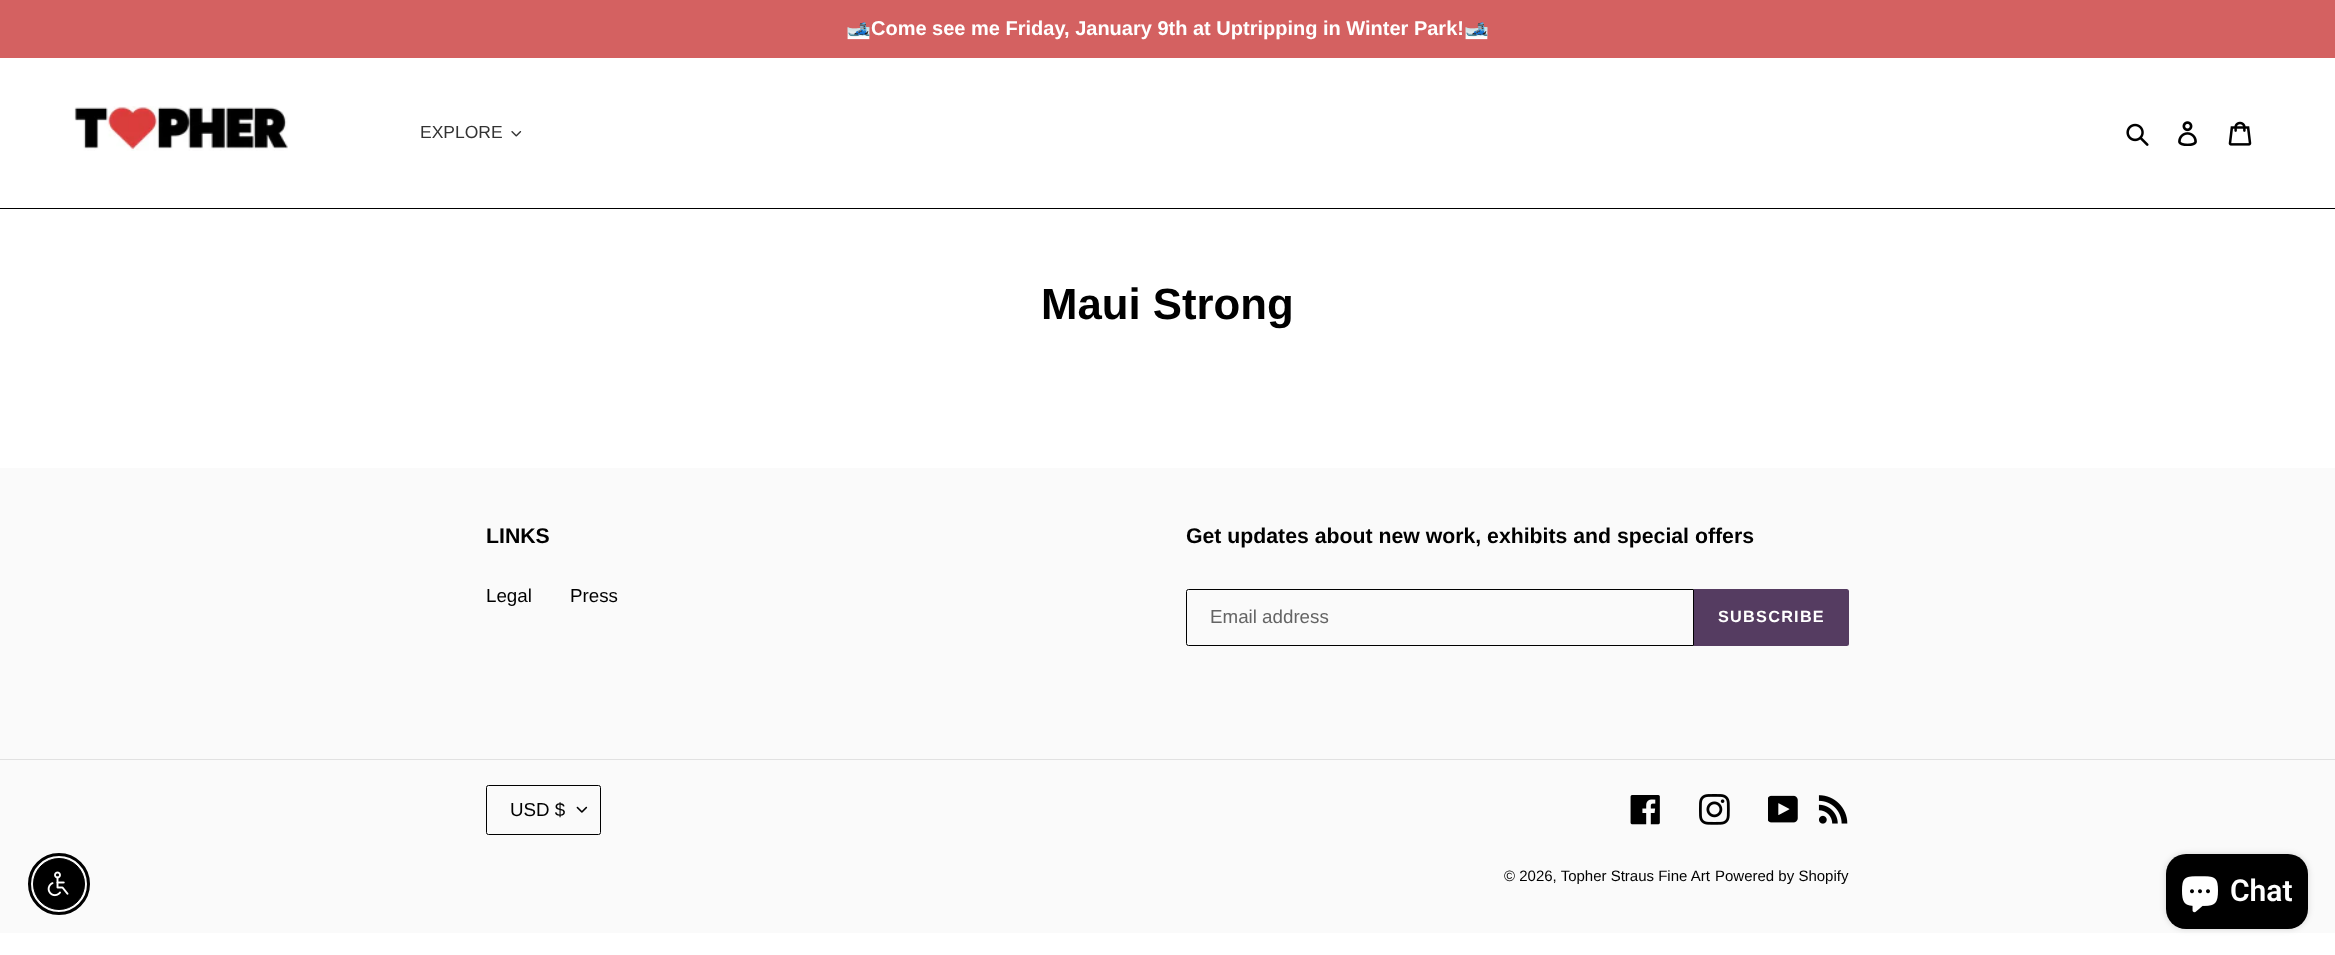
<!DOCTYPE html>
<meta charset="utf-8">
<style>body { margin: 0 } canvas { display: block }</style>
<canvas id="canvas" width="2335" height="955"></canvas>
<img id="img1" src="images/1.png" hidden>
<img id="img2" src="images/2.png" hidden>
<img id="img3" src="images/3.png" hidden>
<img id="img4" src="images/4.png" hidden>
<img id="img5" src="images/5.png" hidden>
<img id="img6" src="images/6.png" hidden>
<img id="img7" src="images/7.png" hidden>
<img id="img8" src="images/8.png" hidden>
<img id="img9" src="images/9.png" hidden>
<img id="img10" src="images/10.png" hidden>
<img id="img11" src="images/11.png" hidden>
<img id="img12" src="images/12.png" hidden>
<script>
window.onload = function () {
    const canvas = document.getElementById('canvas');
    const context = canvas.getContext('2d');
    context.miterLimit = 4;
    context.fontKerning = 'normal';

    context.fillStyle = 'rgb(255, 255, 255)';
    context.fillRect(0, 0, 2335, 955);
    context.fillStyle = 'rgb(212, 97, 97)';
    context.fillRect(0, 0, 2335, 58);
    context.fillStyle = 'rgb(0, 0, 0)';
    context.fillRect(0, 208, 2335, 1);
    context.drawImage(document.getElementById('img1'), 74, 106, 214, 45);
    context.drawImage(document.getElementById('img2'), 511, 131, 11, 6);
    context.drawImage(document.getElementById('img3'), 2126, 123, 23, 23);
    context.drawImage(document.getElementById('img4'), 2178, 121, 19, 25);
    context.drawImage(document.getElementById('img5'), 2228, 121, 24, 25);
    context.fillStyle = 'rgb(250, 250, 250)';
    context.fillRect(0, 468, 2335, 465);
    context.beginPath();
    context.arc(59, 884, 29.5, 0, 2 * Math.PI);
    context.strokeStyle = 'rgb(0, 0, 0)';
    context.lineWidth = 3;
    context.stroke();
    context.fillStyle = 'rgb(0, 0, 0)';
    context.beginPath();
    context.arc(59, 884, 25.5, 0, 2 * Math.PI);
    context.fill();
    context.lineWidth = 1;
    context.stroke();
    context.drawImage(document.getElementById('img6'), 47, 871, 22, 26);
    context.beginPath();
    context.roundRect(1186.5, 589.5, 507, 56, [2, 0, 0, 2]);
    context.stroke();
    context.fillStyle = 'rgb(85, 60, 97)';
    context.beginPath();
    context.roundRect(1694, 589, 155, 57, [0, 2.5, 2.5, 0]);
    context.fill();
    context.fillStyle = 'rgb(225, 225, 225)';
    context.fillRect(0, 759, 2335, 1);
    context.drawImage(document.getElementById('img7'), 576, 806, 12, 7);
    context.beginPath();
    context.roundRect(486.5, 785.5, 114, 49, 2);
    context.stroke();
    context.drawImage(document.getElementById('img8'), 1630, 795, 30, 30);
    context.drawImage(document.getElementById('img9'), 1699, 794, 31, 31);
    context.drawImage(document.getElementById('img10'), 1768, 795, 30, 28);
    context.drawImage(document.getElementById('img11'), 1818, 795, 30, 29);
    context.fillStyle = 'rgba(0, 0, 0, 0.15)';
    context.filter = 'blur(3px)';
    context.beginPath();
    context.roundRect(2166, 854, 142, 75, 20);
    context.fill();
    context.filter = 'none';
    context.fillStyle = 'rgb(0, 0, 0)';
    context.beginPath();
    context.roundRect(2166, 854, 142, 75, 20);
    context.fill();
    context.drawImage(document.getElementById('img12'), 2182, 876, 36, 37);
    context.font = 'bold 20px Noto Color Emoji';
    context.fillStyle = 'rgb(255, 255, 255)';
    context.fillText('🎿', 846, 35);
    context.font = 'bold 20px Liberation Sans';
    context.fillText('Come see me Friday, January 9th at Uptripping in Winter Park!', 871, 35);
    context.font = 'bold 20px Noto Color Emoji';
    context.fillText('🎿', 1464, 35);
    context.font = '17.5px Liberation Sans';
    context.fillStyle = 'rgb(51, 51, 51)';
    context.fillText('EXPLORE', 420, 138);
    context.font = 'bold 43.75px Liberation Sans';
    context.fillStyle = 'rgb(0, 0, 0)';
    context.fillText('Maui Strong', 1041, 319);
    context.font = 'bold 21.25px Liberation Sans';
    context.fillText('LINKS', 486, 543);
    context.font = '18.75px Liberation Sans';
    context.fillText('Legal', 486, 602);
    context.fillText('Press', 570, 602);
    context.font = 'bold 21.25px Liberation Sans';
    context.fillText('Get updates about new work, exhibits and special offers', 1186, 543);
    context.font = '18.75px Liberation Sans';
    context.fillStyle = 'rgb(100, 100, 100)';
    context.fillText('Email address', 1210, 623);
    context.letterSpacing = '1.25px';
    context.font = 'bold 16.25px Liberation Sans';
    context.fillStyle = 'rgb(255, 255, 255)';
    context.fillText('SUBSCRIBE', 1718, 622);
    context.letterSpacing = '0px';
    context.font = '18.75px Liberation Sans';
    context.fillStyle = 'rgb(0, 0, 0)';
    context.fillText('USD $', 510, 816);
    context.font = '15px Liberation Sans';
    context.fillText('© 2026, Topher Straus Fine Art', 1504, 881);
    context.fillText('Powered by Shopify', 1715, 881);
    context.font = '600 30px Roboto';
    context.fillStyle = 'rgb(255, 255, 255)';
    context.fillText('Chat', 2230, 901);
};
</script>
